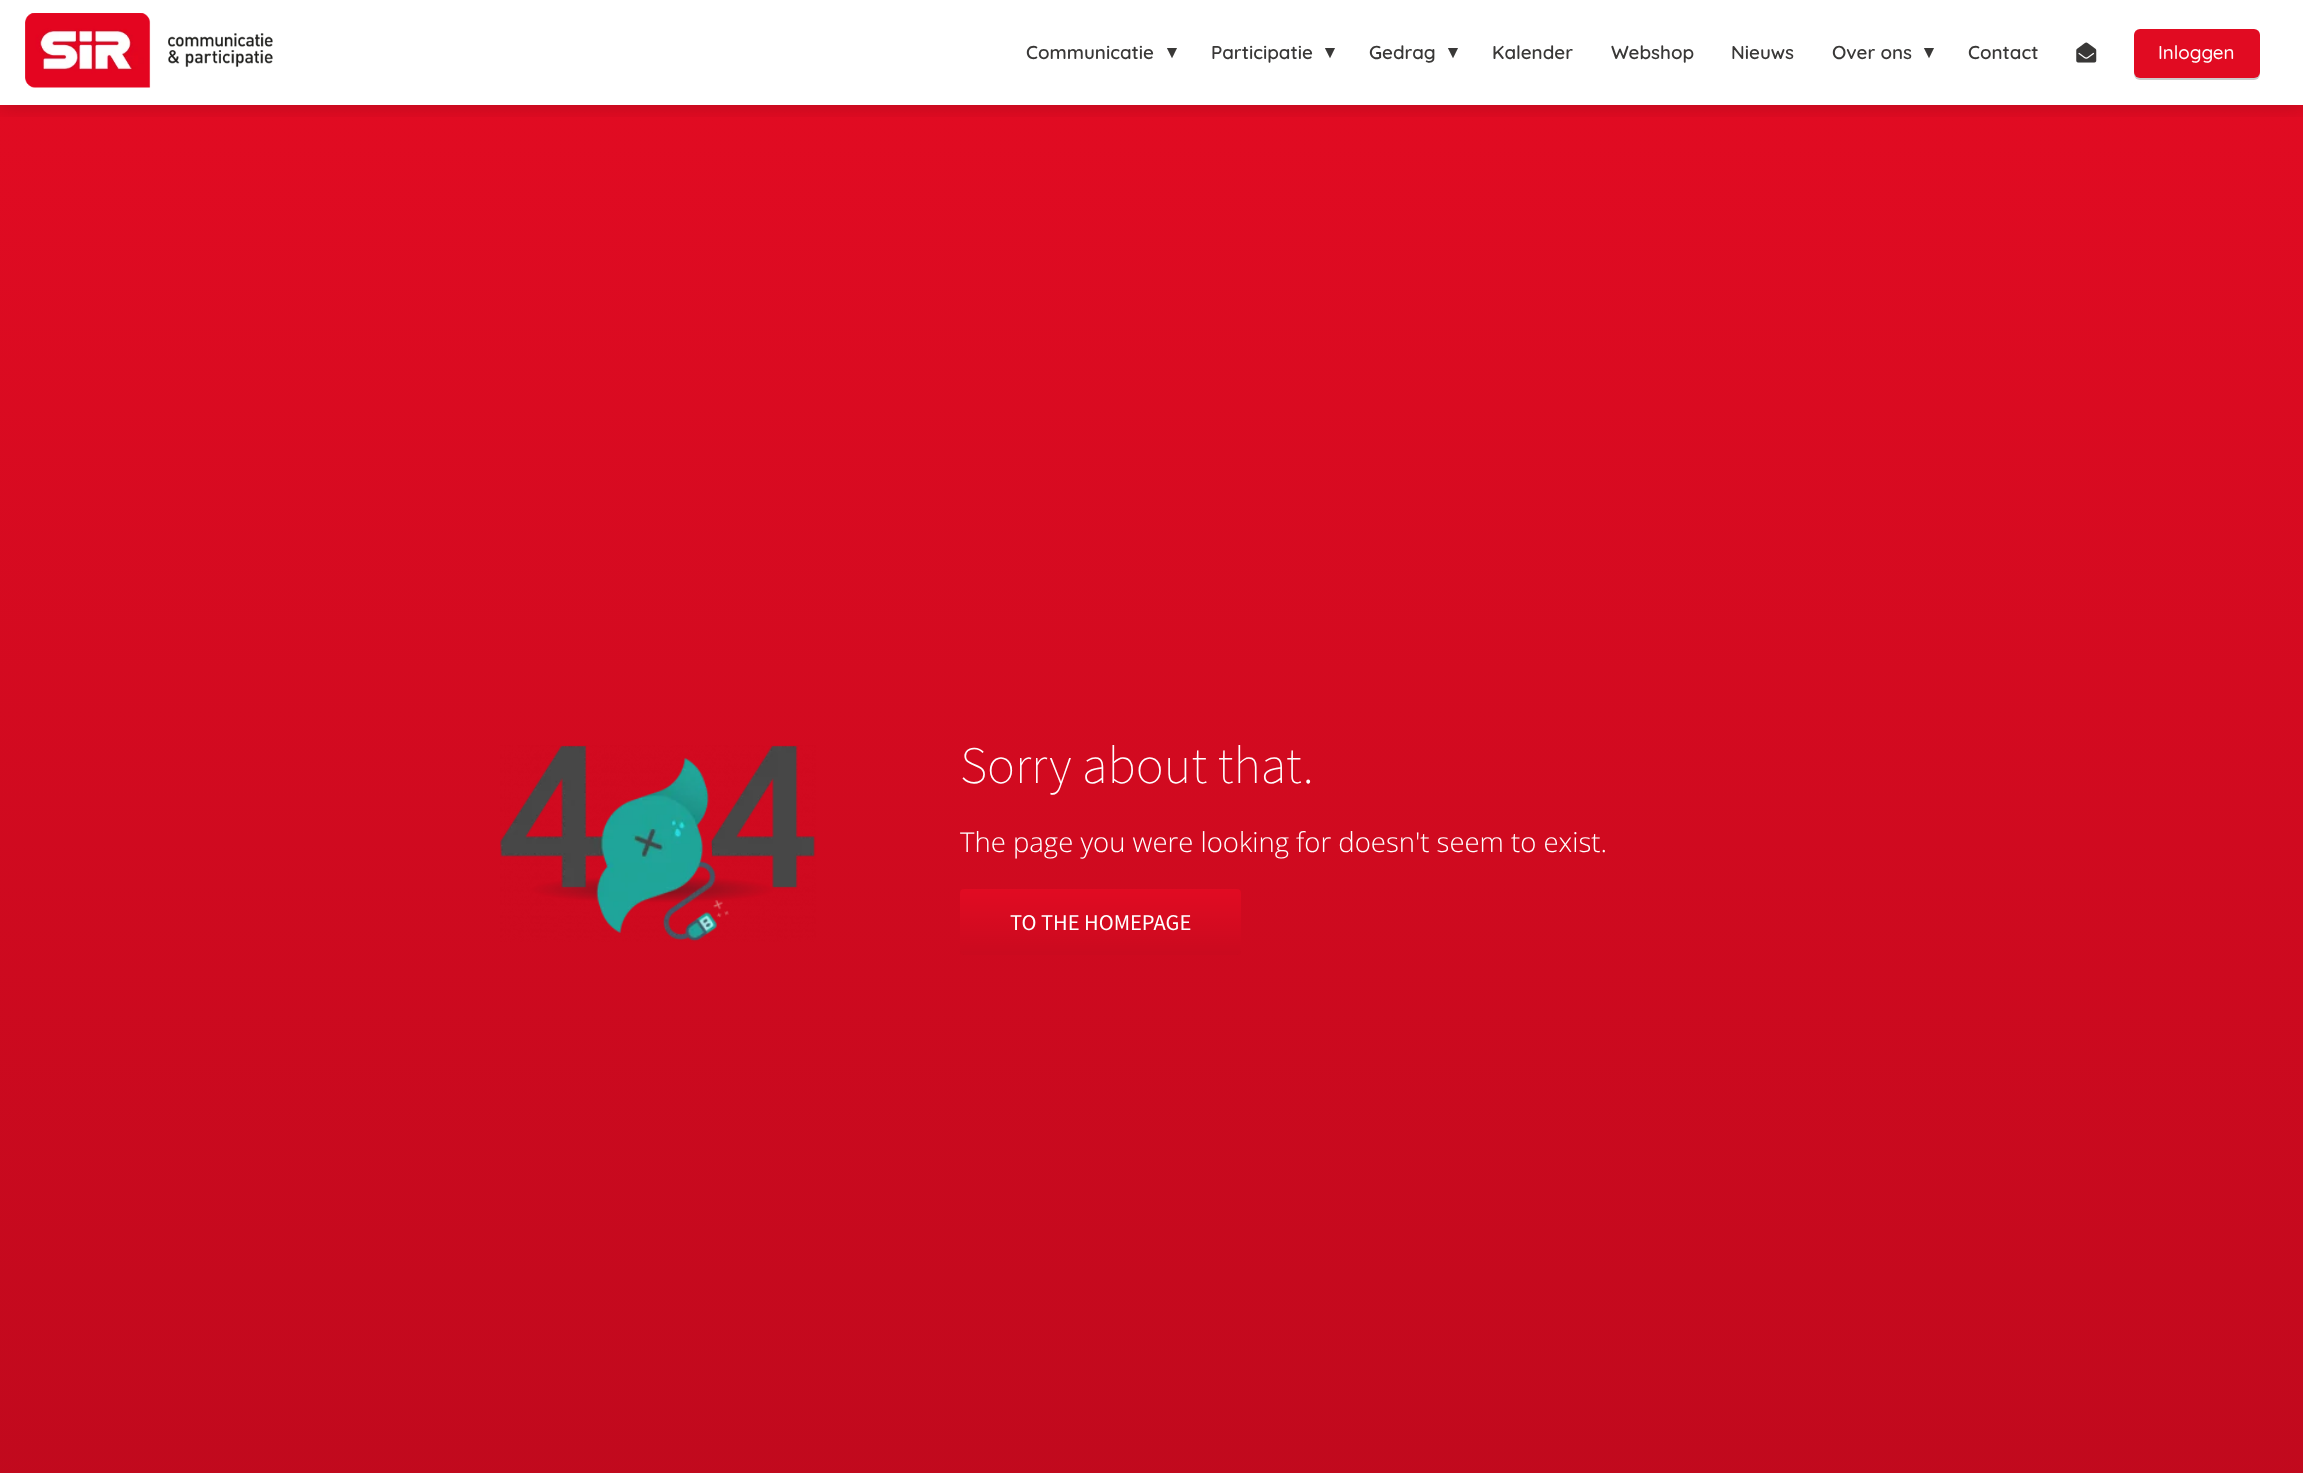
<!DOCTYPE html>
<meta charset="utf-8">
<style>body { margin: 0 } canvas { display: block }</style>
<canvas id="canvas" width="2303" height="1473"></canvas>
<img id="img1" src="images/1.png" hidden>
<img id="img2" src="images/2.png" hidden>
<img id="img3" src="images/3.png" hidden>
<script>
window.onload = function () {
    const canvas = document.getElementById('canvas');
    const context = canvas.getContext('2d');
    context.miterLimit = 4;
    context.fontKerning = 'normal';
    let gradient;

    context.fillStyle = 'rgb(255, 255, 255)';
    context.fillRect(0, 0, 2303, 1473);
    gradient = context.createLinearGradient(1152, 105, 1152, 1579);
    gradient.addColorStop(0, 'rgb(225, 11, 34)');
    gradient.addColorStop(1, 'rgb(191, 9, 29)');
    context.fillStyle = gradient;
    context.fillRect(0, 105, 2303, 1368);
    context.save();
    context.beginPath();
    context.rect(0, 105, 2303, 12);
    context.clip();
    context.fillStyle = 'rgba(0, 0, 0, 0.2)';
    context.filter = 'blur(9.5px)';
    context.beginPath();
    context.rect(0, 0, 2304, 105);
    context.fill();
    context.filter = 'none';
    context.restore();
    context.drawImage(document.getElementById('img1'), 25, 13, 248, 75);
    context.drawImage(document.getElementById('img2'), 2076, 42, 21, 21);
    context.fillStyle = 'rgba(0, 0, 0, 0.2)';
    context.filter = 'blur(0.5px)';
    context.beginPath();
    context.roundRect(2134, 31, 126, 49, 6);
    context.fill();
    context.filter = 'none';
    context.fillStyle = 'rgb(225, 11, 34)';
    context.beginPath();
    context.roundRect(2134, 29, 126, 49, 6);
    context.fill();
    context.drawImage(document.getElementById('img3'), 500, 745, 316, 197);
    context.beginPath();
    context.roundRect(960, 889, 281, 66, 4);
    context.fill();
    gradient = context.createLinearGradient(1101, 889, 1101, 955);
    gradient.addColorStop(0, 'rgba(0, 0, 0, 0)');
    gradient.addColorStop(1, 'rgba(0, 0, 0, 0.1)');
    context.fillStyle = gradient;
    context.beginPath();
    context.roundRect(960, 889, 281, 66, 4);
    context.fill();
    context.font = '600 18.75px Quicksand';
    context.fillStyle = 'rgb(57, 56, 55)';
    context.fillText('Communicatie', 1026, 59);
    context.font = 'bold 18.75px DejaVu Sans';
    context.fillText('▾', 1167, 58);
    context.font = '600 18.75px Quicksand';
    context.fillText('Participatie', 1211, 59);
    context.font = 'bold 18.75px DejaVu Sans';
    context.fillText('▾', 1325, 58);
    context.font = '600 18.75px Quicksand';
    context.fillText('Gedrag', 1369, 59);
    context.font = 'bold 18.75px DejaVu Sans';
    context.fillText('▾', 1448, 58);
    context.font = '600 18.75px Quicksand';
    context.fillText('Kalender', 1492, 59);
    context.fillText('Webshop', 1611, 59);
    context.fillText('Nieuws', 1731, 59);
    context.fillText('Over ons', 1832, 59);
    context.font = 'bold 18.75px DejaVu Sans';
    context.fillText('▾', 1924, 58);
    context.font = '600 18.75px Quicksand';
    context.fillText('Contact', 1968, 59);
    context.font = '500 18.75px Quicksand';
    context.fillStyle = 'rgb(255, 255, 255)';
    context.fillText('Inloggen', 2158, 59);
    context.font = '200 52.5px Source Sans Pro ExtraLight';
    context.fillText('Sorry about that.', 960, 783);
    context.font = '300 27.5px Open Sans';
    context.fillText('The page you were looking for doesn\'t seem to exist.', 960, 852);
    context.font = '22.5px Source Sans Pro';
    context.fillText('TO THE HOMEPAGE', 1010, 930);
};
</script>
